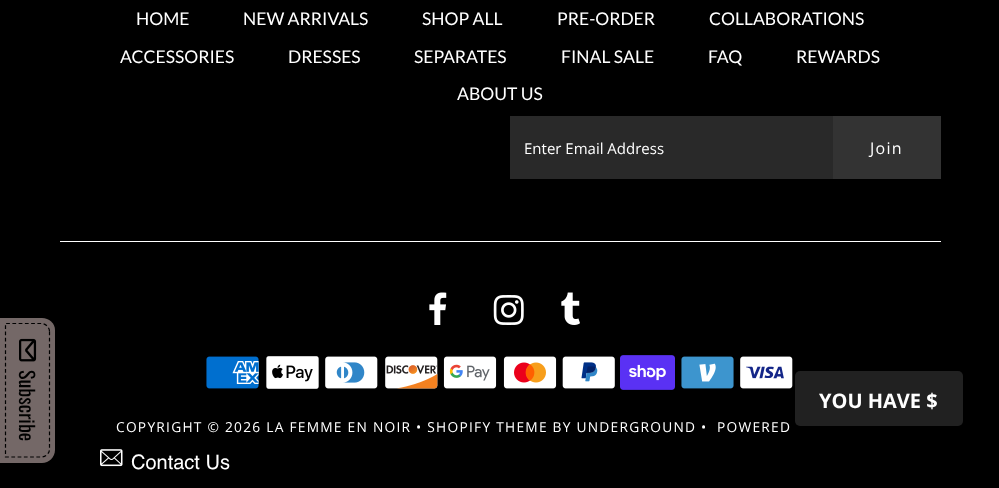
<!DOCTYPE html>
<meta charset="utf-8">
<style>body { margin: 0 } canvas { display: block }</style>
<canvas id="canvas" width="999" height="488"></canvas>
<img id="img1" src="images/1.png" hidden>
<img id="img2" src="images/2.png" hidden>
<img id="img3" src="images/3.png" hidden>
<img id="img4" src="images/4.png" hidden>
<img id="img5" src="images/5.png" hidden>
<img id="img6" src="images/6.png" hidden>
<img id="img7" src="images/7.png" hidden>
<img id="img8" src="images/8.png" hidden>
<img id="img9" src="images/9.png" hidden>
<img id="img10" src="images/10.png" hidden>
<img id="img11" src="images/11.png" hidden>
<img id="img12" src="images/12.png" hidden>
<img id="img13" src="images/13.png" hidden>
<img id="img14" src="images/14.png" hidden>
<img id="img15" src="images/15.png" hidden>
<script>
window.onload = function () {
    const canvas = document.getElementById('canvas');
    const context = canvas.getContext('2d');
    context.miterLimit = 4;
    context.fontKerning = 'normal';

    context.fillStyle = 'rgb(0, 0, 0)';
    context.fillRect(0, 0, 999, 488);
    context.fillStyle = 'rgb(116, 104, 103)';
    context.beginPath();
    context.moveTo(55, 330);
    context.lineTo(55, 450);
    context.bezierCurveTo(55, 457, 49, 463, 42, 463);
    context.lineTo(0, 463);
    context.lineTo(0, 318);
    context.lineTo(42, 318);
    context.bezierCurveTo(49, 318, 55, 323, 55, 330);
    context.closePath();
    context.fill();
    context.beginPath();
    context.moveTo(49.5, 331.5);
    context.lineTo(49.5, 449);
    context.bezierCurveTo(49.5, 453.5, 45.5, 457, 41, 457);
    context.lineTo(5.5, 457);
    context.lineTo(5.5, 323.5);
    context.lineTo(41, 323.5);
    context.bezierCurveTo(45.5, 323.5, 49.5, 327, 49.5, 331.5);
    context.closePath();
    context.strokeStyle = 'rgb(0, 0, 0)';
    context.lineWidth = 1.2;
    context.setLineDash([3.75, 2.5]);
    context.stroke();
    context.drawImage(document.getElementById('img1'), 19, 338, 18, 24);
    context.fillStyle = 'rgb(41, 41, 41)';
    context.fillRect(510, 116, 323, 63);
    context.fillStyle = 'rgb(51, 51, 51)';
    context.fillRect(833, 116, 108, 63);
    context.fillStyle = 'rgb(255, 255, 255)';
    context.fillRect(60, 241, 881, 1);
    context.drawImage(document.getElementById('img2'), 429, 292, 18, 33);
    context.drawImage(document.getElementById('img3'), 493, 295, 31, 30);
    context.drawImage(document.getElementById('img4'), 561, 292, 19, 33);
    context.drawImage(document.getElementById('img5'), 206, 356, 53, 33);
    context.drawImage(document.getElementById('img6'), 266, 356, 53, 33);
    context.drawImage(document.getElementById('img7'), 325, 356, 53, 33);
    context.drawImage(document.getElementById('img8'), 385, 356, 53, 33);
    context.drawImage(document.getElementById('img9'), 443, 356, 54, 33);
    context.drawImage(document.getElementById('img10'), 503, 356, 54, 33);
    context.drawImage(document.getElementById('img11'), 562, 356, 53, 33);
    context.drawImage(document.getElementById('img12'), 620, 355, 55, 35);
    context.drawImage(document.getElementById('img13'), 681, 356, 53, 33);
    context.drawImage(document.getElementById('img14'), 740, 356, 53, 33);
    context.fillStyle = 'rgb(33, 33, 33)';
    context.beginPath();
    context.roundRect(795, 371, 168, 55, 5);
    context.fill();
    context.drawImage(document.getElementById('img15'), 100, 449, 23, 18);
    context.font = '17.5px Lato';
    context.fillStyle = 'rgb(255, 255, 255)';
    context.fillText('HOME', 136, 25);
    context.fillText('NEW ARRIVALS', 243, 25);
    context.fillText('SHOP ALL', 422, 25);
    context.fillText('PRE-ORDER', 557, 25);
    context.fillText('COLLABORATIONS', 709, 25);
    context.fillText('ACCESSORIES', 120, 63);
    context.fillText('DRESSES', 288, 63);
    context.fillText('SEPARATES', 414, 63);
    context.fillText('FINAL SALE', 561, 63);
    context.fillText('FAQ', 708, 63);
    context.fillText('REWARDS', 796, 63);
    context.fillText('ABOUT US', 457, 100);
    context.font = '20px Oswald';
    context.fillStyle = 'rgb(0, 0, 0)';
    context.save();
    context.translate(19, 370);
    context.rotate(90 * Math.PI / 180);
    context.fillText('Subscribe', 0, 0);
    context.restore();
    context.font = '15px Open Sans';
    context.fillStyle = 'rgb(255, 255, 255)';
    context.fillText('Enter Email Address', 524, 154);
    context.letterSpacing = '1.25px';
    context.font = '16px Open Sans';
    context.fillText('Join', 870, 154);
    context.font = '13.75px Open Sans';
    context.fillText('COPYRIGHT © 2026 LA FEMME EN NOIR • SHOPIFY THEME BY UNDERGROUND •', 116, 432);
    context.fillText('POWERED', 717, 432);
    context.letterSpacing = '0px';
    context.font = 'bold 20px Open Sans';
    context.fillText('YOU HAVE $', 819, 408);
    context.font = '20px Helvetica';
    context.fillText('Contact Us', 131, 469);
};
</script>
